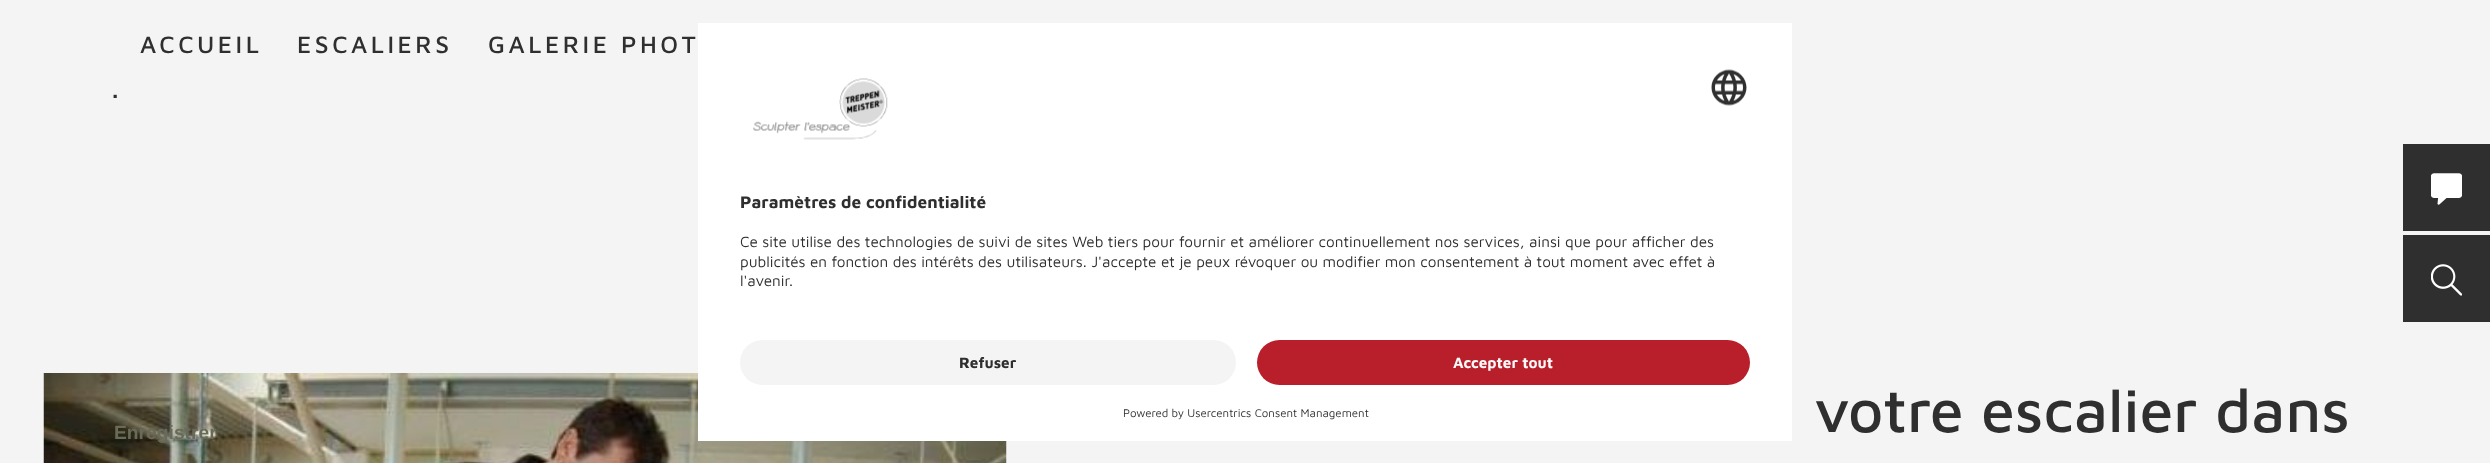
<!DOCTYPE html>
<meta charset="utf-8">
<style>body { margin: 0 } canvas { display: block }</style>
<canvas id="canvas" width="2490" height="463"></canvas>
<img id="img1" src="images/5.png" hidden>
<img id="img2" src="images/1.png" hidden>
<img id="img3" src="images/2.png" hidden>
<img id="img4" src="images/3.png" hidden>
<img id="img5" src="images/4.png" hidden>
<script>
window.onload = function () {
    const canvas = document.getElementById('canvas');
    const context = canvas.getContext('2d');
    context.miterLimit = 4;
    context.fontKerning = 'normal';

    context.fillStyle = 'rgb(244, 244, 244)';
    context.fillRect(0, 0, 2490, 463);
    context.drawImage(document.getElementById('img1'), 43, 373, 964, 90);
    context.fillStyle = 'rgb(255, 255, 255)';
    context.fillRect(698, 23, 1094, 418);
    context.drawImage(document.getElementById('img2'), 753, 78, 135, 62);
    context.drawImage(document.getElementById('img3'), 1711, 69, 36, 37);
    context.fillStyle = 'rgb(244, 244, 244)';
    context.beginPath();
    context.roundRect(740, 340, 496, 45, 22.5);
    context.fill();
    context.fillStyle = 'rgb(185, 30, 43)';
    context.beginPath();
    context.roundRect(1257, 340, 493, 45, 22.5);
    context.fill();
    context.fillStyle = 'rgb(47, 47, 47)';
    context.fillRect(2403, 144, 87, 87);
    context.drawImage(document.getElementById('img4'), 2431, 173, 31, 32);
    context.fillRect(2403, 235, 87, 87);
    context.drawImage(document.getElementById('img5'), 2431, 264, 31, 32);
    context.letterSpacing = '3.5px';
    context.font = '500 24.5px Maven Pro';
    context.fillText('ACCUEIL', 140, 53);
    context.fillText('ESCALIERS', 297, 53);
    context.fillText('GALERIE PHOT', 488, 53);
    context.letterSpacing = '0px';
    context.font = '32px Maven Pro';
    context.fillText('.', 111, 98);
    context.font = 'bold 17.25px Maven Pro';
    context.fillText('Paramètres de confidentialité', 740, 208);
    context.font = '15.3px Maven Pro';
    context.fillText('Ce site utilise des technologies de suivi de sites Web tiers pour fournir et améliorer continuellement nos services, ainsi que pour afficher des', 740, 247);
    context.fillText('publicités en fonction des intérêts des utilisateurs. J\'accepte et je peux révoquer ou modifier mon consentement à tout moment avec effet à', 740, 267);
    context.fillText('l\'avenir.', 740, 286);
    context.font = 'bold 15.3px Maven Pro';
    context.fillText('Refuser', 959, 368);
    context.fillStyle = 'rgb(250, 250, 250)';
    context.fillText('Accepter tout', 1453, 368);
    context.font = '11.5px Maven Pro';
    context.fillStyle = 'rgb(47, 47, 47)';
    context.fillText('Powered by Usercentrics Consent Management', 1123, 417);
    context.font = 'bold 19.25px Liberation Sans';
    context.fillStyle = 'rgb(106, 106, 89)';
    context.fillText('Enregistrer', 114, 439);
    context.font = '500 61.25px Maven Pro';
    context.fillStyle = 'rgb(47, 47, 47)';
    context.fillText('votre escalier dans', 1814, 432);
};
</script>
